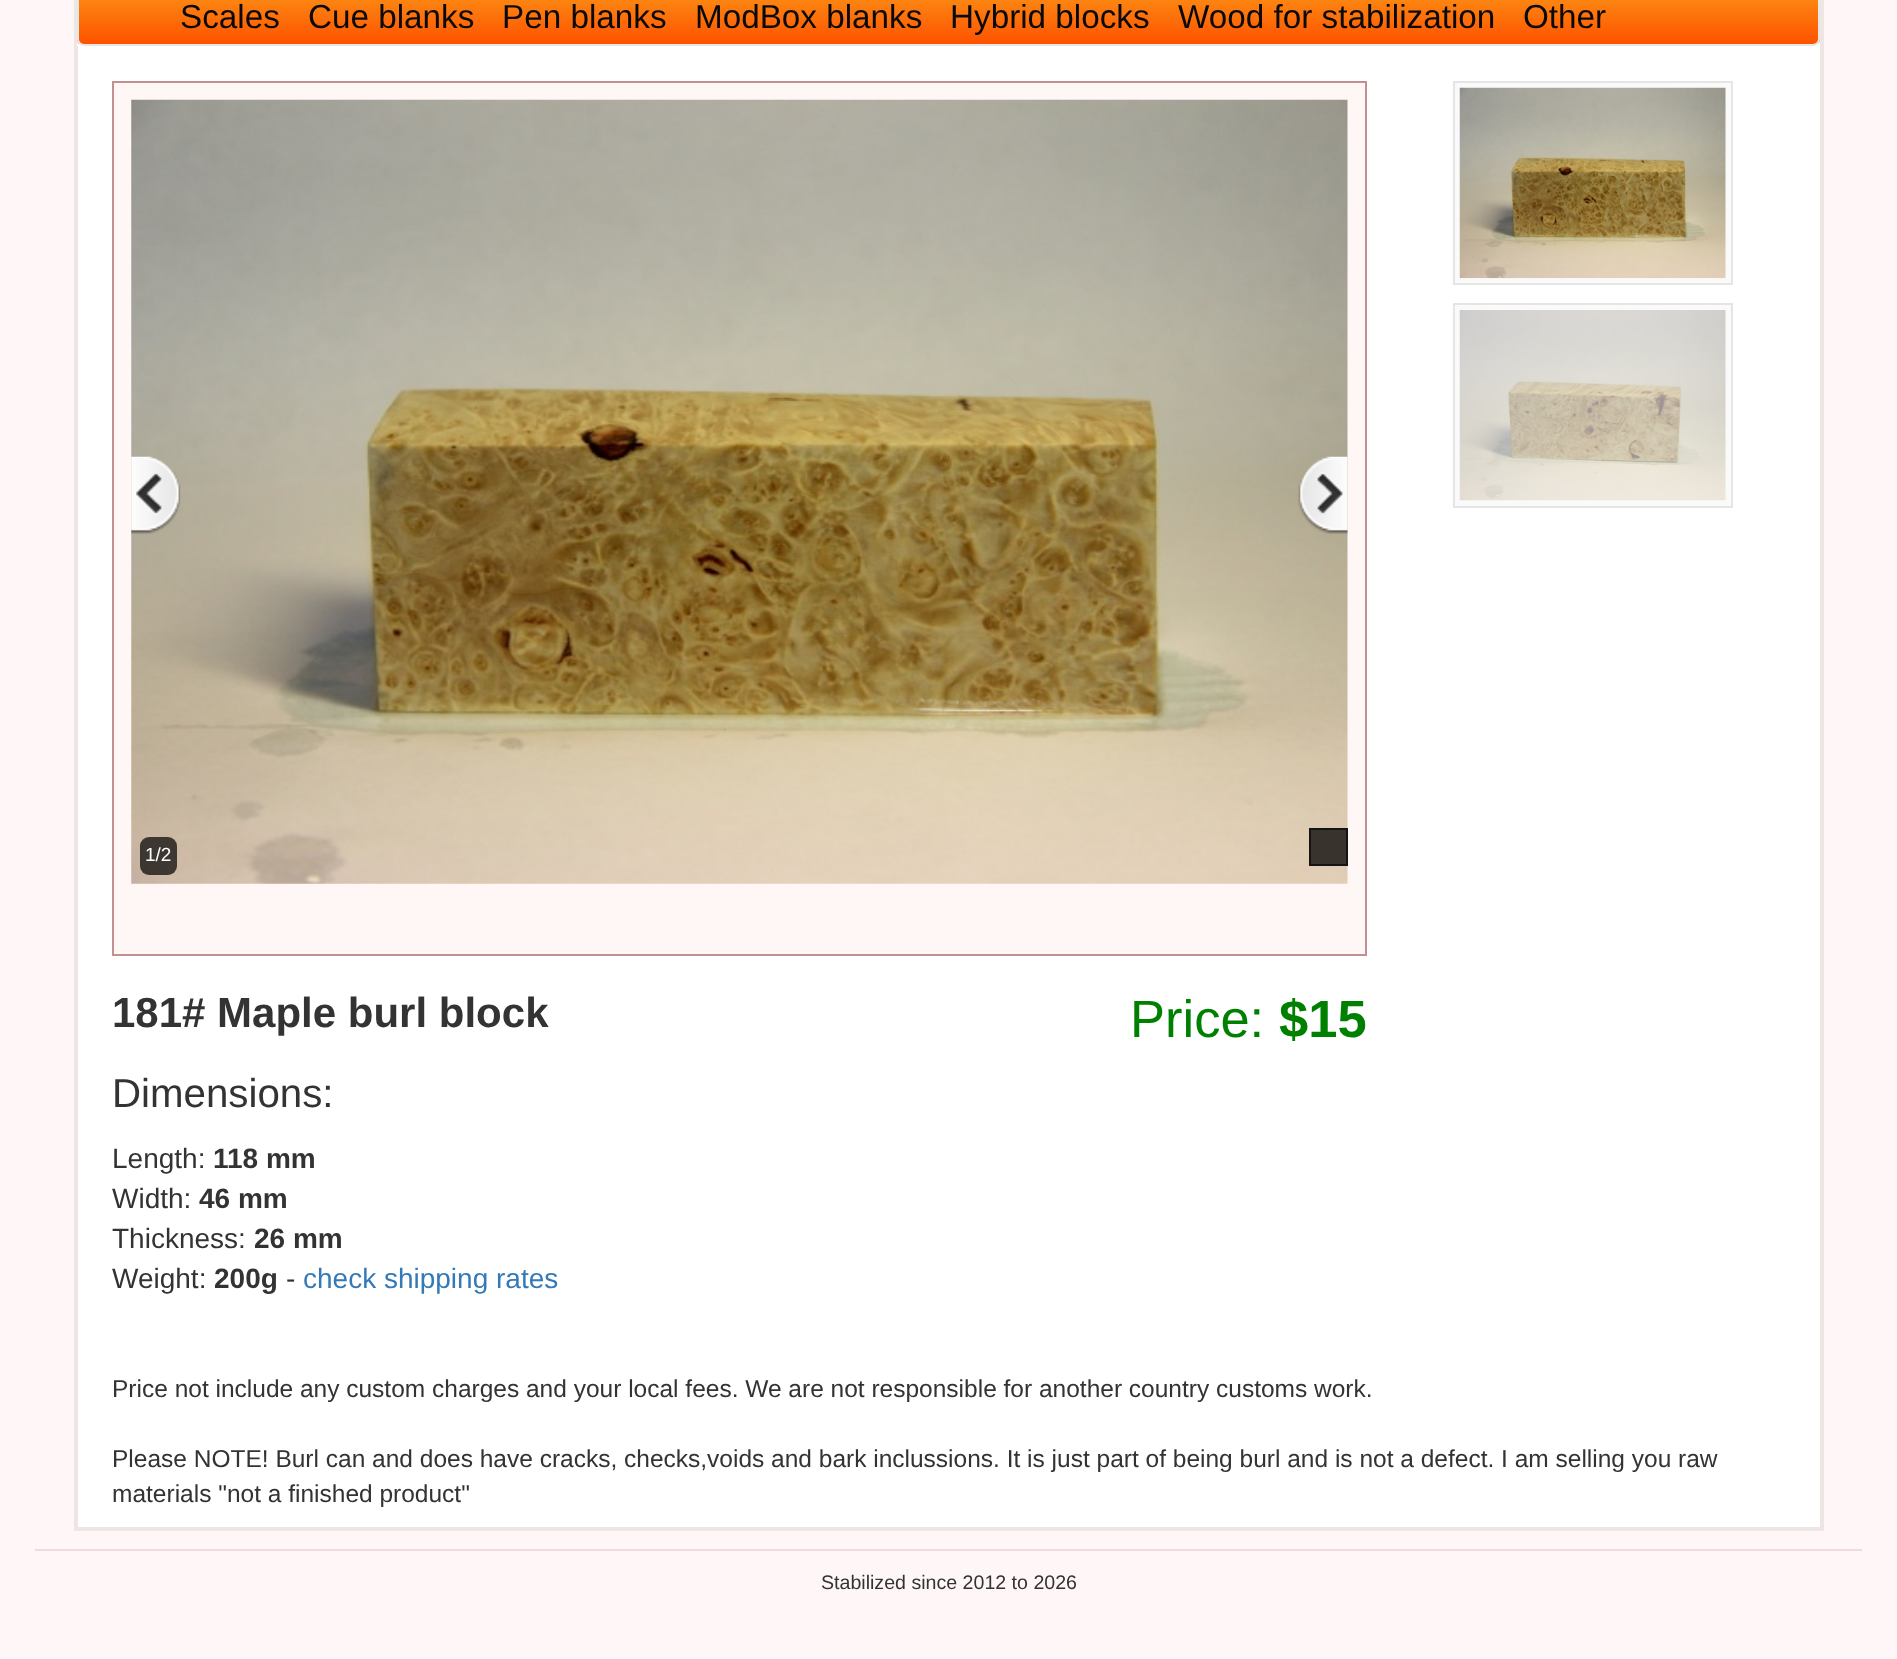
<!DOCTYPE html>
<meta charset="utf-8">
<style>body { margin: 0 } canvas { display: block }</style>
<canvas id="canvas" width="1897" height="1659"></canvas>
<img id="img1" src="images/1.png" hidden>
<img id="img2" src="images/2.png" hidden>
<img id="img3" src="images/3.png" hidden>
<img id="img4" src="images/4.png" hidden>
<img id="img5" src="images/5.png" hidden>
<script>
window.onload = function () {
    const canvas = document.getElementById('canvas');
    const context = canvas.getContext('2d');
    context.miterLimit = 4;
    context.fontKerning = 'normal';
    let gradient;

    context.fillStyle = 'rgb(255, 247, 247)';
    context.fillRect(0, 0, 1897, 1659);
    context.fillStyle = 'rgb(255, 255, 255)';
    context.fillRect(78, 46, 1742, 1481);
    context.strokeStyle = 'rgb(238, 229, 229)';
    context.lineWidth = 4;
    context.strokeRect(76, -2, 1746, 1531);
    context.fillRect(77, 39, 1743, 7);
    context.save();
    context.beginPath();
    context.roundRect(77, -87, 1743, 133, 7);
    context.clip();
    gradient = context.createLinearGradient(949, -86, 949, 44);
    gradient.addColorStop(0, 'rgb(246, 231, 50)');
    gradient.addColorStop(1, 'rgb(255, 82, 0)');
    context.fillStyle = gradient;
    context.fillRect(77, 0, 1743, 44);
    context.restore();
    context.beginPath();
    context.roundRect(78, -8, 1741, 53, 6);
    context.strokeStyle = 'rgb(231, 231, 231)';
    context.lineWidth = 2;
    context.stroke();
    context.fillStyle = 'rgb(250, 250, 250)';
    context.beginPath();
    context.rect(1454, 82, 278, 202);
    context.fill();
    context.strokeStyle = 'rgb(229, 229, 229)';
    context.stroke();
    context.drawImage(document.getElementById('img1'), 1459, 87, 267, 192);
    context.beginPath();
    context.rect(1454, 304, 278, 203);
    context.fill();
    context.stroke();
    context.drawImage(document.getElementById('img2'), 1459, 310, 267, 191);
    context.fillStyle = 'rgb(255, 246, 246)';
    context.beginPath();
    context.rect(113, 82, 1253, 873);
    context.fill();
    context.strokeStyle = 'rgb(194, 144, 144)';
    context.stroke();
    context.drawImage(document.getElementById('img3'), 131, 99, 1217, 785);
    context.drawImage(document.getElementById('img4'), 131, 456, 50, 78);
    context.drawImage(document.getElementById('img5'), 1298, 456, 50, 78);
    context.fillStyle = 'rgba(0, 0, 0, 0.7)';
    context.beginPath();
    context.roundRect(140, 837, 37, 38, 9);
    context.fill();
    context.fillStyle = 'rgba(0, 0, 0, 0.75)';
    context.beginPath();
    context.rect(1310, 829, 37, 36);
    context.fill();
    context.strokeStyle = 'rgb(20, 20, 20)';
    context.stroke();
    context.fillStyle = 'rgb(241, 219, 222)';
    context.fillRect(35, 1549, 1827, 2);
    context.font = '33.25px Liberation Sans';
    context.fillStyle = 'rgb(10, 10, 10)';
    context.fillText('Scales', 180, 28);
    context.fillText('Cue blanks', 308, 28);
    context.fillText('Pen blanks', 502, 28);
    context.fillText('ModBox blanks', 695, 28);
    context.fillText('Hybrid blocks', 950, 28);
    context.fillText('Wood for stabilization', 1178, 28);
    context.fillText('Other', 1523, 28);
    context.font = '19px Liberation Sans';
    context.fillStyle = 'rgb(255, 255, 255)';
    context.fillText('1/2', 145, 861);
    context.font = 'bold 42px Liberation Sans';
    context.fillStyle = 'rgb(51, 51, 51)';
    context.fillText('181# Maple burl block', 112, 1027);
    context.font = '52.5px Liberation Sans';
    context.fillStyle = 'rgb(0, 128, 0)';
    context.fillText('Price:', 1130, 1037);
    context.font = 'bold 52.5px Liberation Sans';
    context.fillText('$15', 1279, 1037);
    context.font = '40.25px Liberation Sans';
    context.fillStyle = 'rgb(51, 51, 51)';
    context.fillText('Dimensions:', 112, 1107);
    context.font = '28px Liberation Sans';
    context.fillText('Length:', 112, 1168);
    context.font = 'bold 28px Liberation Sans';
    context.fillText('118 mm', 213, 1168);
    context.font = '28px Liberation Sans';
    context.fillText('Width:', 112, 1208);
    context.font = 'bold 28px Liberation Sans';
    context.fillText('46 mm', 199, 1208);
    context.font = '28px Liberation Sans';
    context.fillText('Thickness:', 112, 1248);
    context.font = 'bold 28px Liberation Sans';
    context.fillText('26 mm', 254, 1248);
    context.font = '28px Liberation Sans';
    context.fillText('Weight:', 112, 1288);
    context.font = 'bold 28px Liberation Sans';
    context.fillText('200g', 214, 1288);
    context.font = '28px Liberation Sans';
    context.fillText('-', 286, 1288);
    context.fillStyle = 'rgb(51, 122, 183)';
    context.fillText('check shipping rates', 303, 1288);
    context.font = '24.5px Liberation Sans';
    context.fillStyle = 'rgb(51, 51, 51)';
    context.fillText('Price not include any custom charges and your local fees. We are not responsible for another country customs work.', 112, 1397);
    context.fillText('Please NOTE! Burl can and does have cracks, checks,voids and bark inclussions. It is just part of being burl and is not a defect. I am selling you raw', 112, 1467);
    context.fillText('materials "not a finished product"', 112, 1502);
    context.font = '19.6px Liberation Sans';
    context.fillText('Stabilized since 2012 to 2026', 821, 1589);
};
</script>
